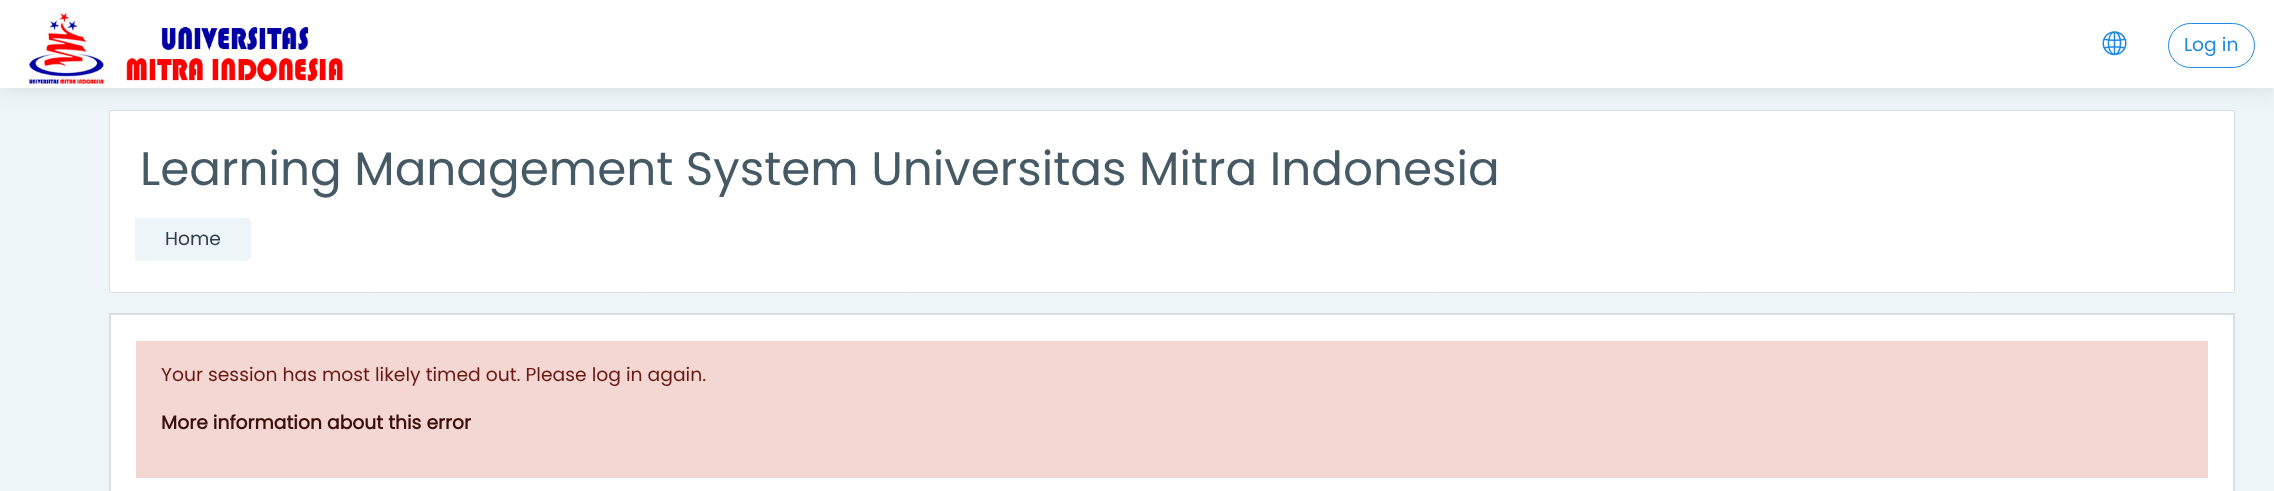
<!DOCTYPE html>
<meta charset="utf-8">
<style>body { margin: 0 } canvas { display: block }</style>
<canvas id="canvas" width="2274" height="491"></canvas>
<img id="img1" src="images/1.png" hidden>
<img id="img2" src="images/2.png" hidden>
<script>
window.onload = function () {
    const canvas = document.getElementById('canvas');
    const context = canvas.getContext('2d');
    context.miterLimit = 4;
    context.fontKerning = 'normal';

    context.fillStyle = 'rgb(238, 245, 249)';
    context.fillRect(0, 0, 2274, 491);
    context.fillStyle = 'rgb(255, 255, 255)';
    context.beginPath();
    context.rect(109.5, 110.5, 2125, 182);
    context.fill();
    context.strokeStyle = 'rgb(215, 223, 227)';
    context.stroke();
    context.fillStyle = 'rgba(0, 0, 0, 0.1)';
    context.filter = 'blur(12.5px)';
    context.beginPath();
    context.rect(0, 0, 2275, 88);
    context.fill();
    context.filter = 'none';
    context.fillStyle = 'rgb(255, 255, 255)';
    context.fillRect(0, 0, 2274, 88);
    context.drawImage(document.getElementById('img1'), 29, 12, 314, 72);
    context.drawImage(document.getElementById('img2'), 2102, 31, 25, 25);
    context.beginPath();
    context.roundRect(2168.5, 23.5, 86, 44, 22);
    context.strokeStyle = 'rgb(30, 136, 229)';
    context.stroke();
    context.fillStyle = 'rgb(238, 245, 249)';
    context.beginPath();
    context.roundRect(135, 218, 116, 43, [0, 5, 5, 0]);
    context.fill();
    context.strokeStyle = 'rgb(215, 223, 227)';
    context.strokeRect(109.5, 313.5, 2125, 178);
    context.fillStyle = 'rgb(255, 255, 255)';
    context.beginPath();
    context.rect(110.5, 314.5, 2123, 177);
    context.fill();
    context.stroke();
    context.fillStyle = 'rgb(244, 214, 210)';
    context.fillRect(136, 341, 2072, 137);
    context.font = '18.75px Poppins';
    context.fillStyle = 'rgb(30, 136, 229)';
    context.fillText('Log in', 2184, 51);
    context.font = '46.9px Poppins';
    context.fillStyle = 'rgb(69, 90, 100)';
    context.fillText('Learning Management System Universitas Mitra Indonesia', 140, 185);
    context.font = '18.75px Poppins';
    context.fillStyle = 'rgb(44, 63, 76)';
    context.fillText('Home', 165, 245);
    context.fillStyle = 'rgb(105, 25, 17)';
    context.fillText('Your session has most likely timed out. Please log in again.', 161, 381);
    context.font = 'bold 18.75px Poppins';
    context.fillStyle = 'rgb(61, 15, 10)';
    context.fillText('More information about this error', 161, 429);
};
</script>
